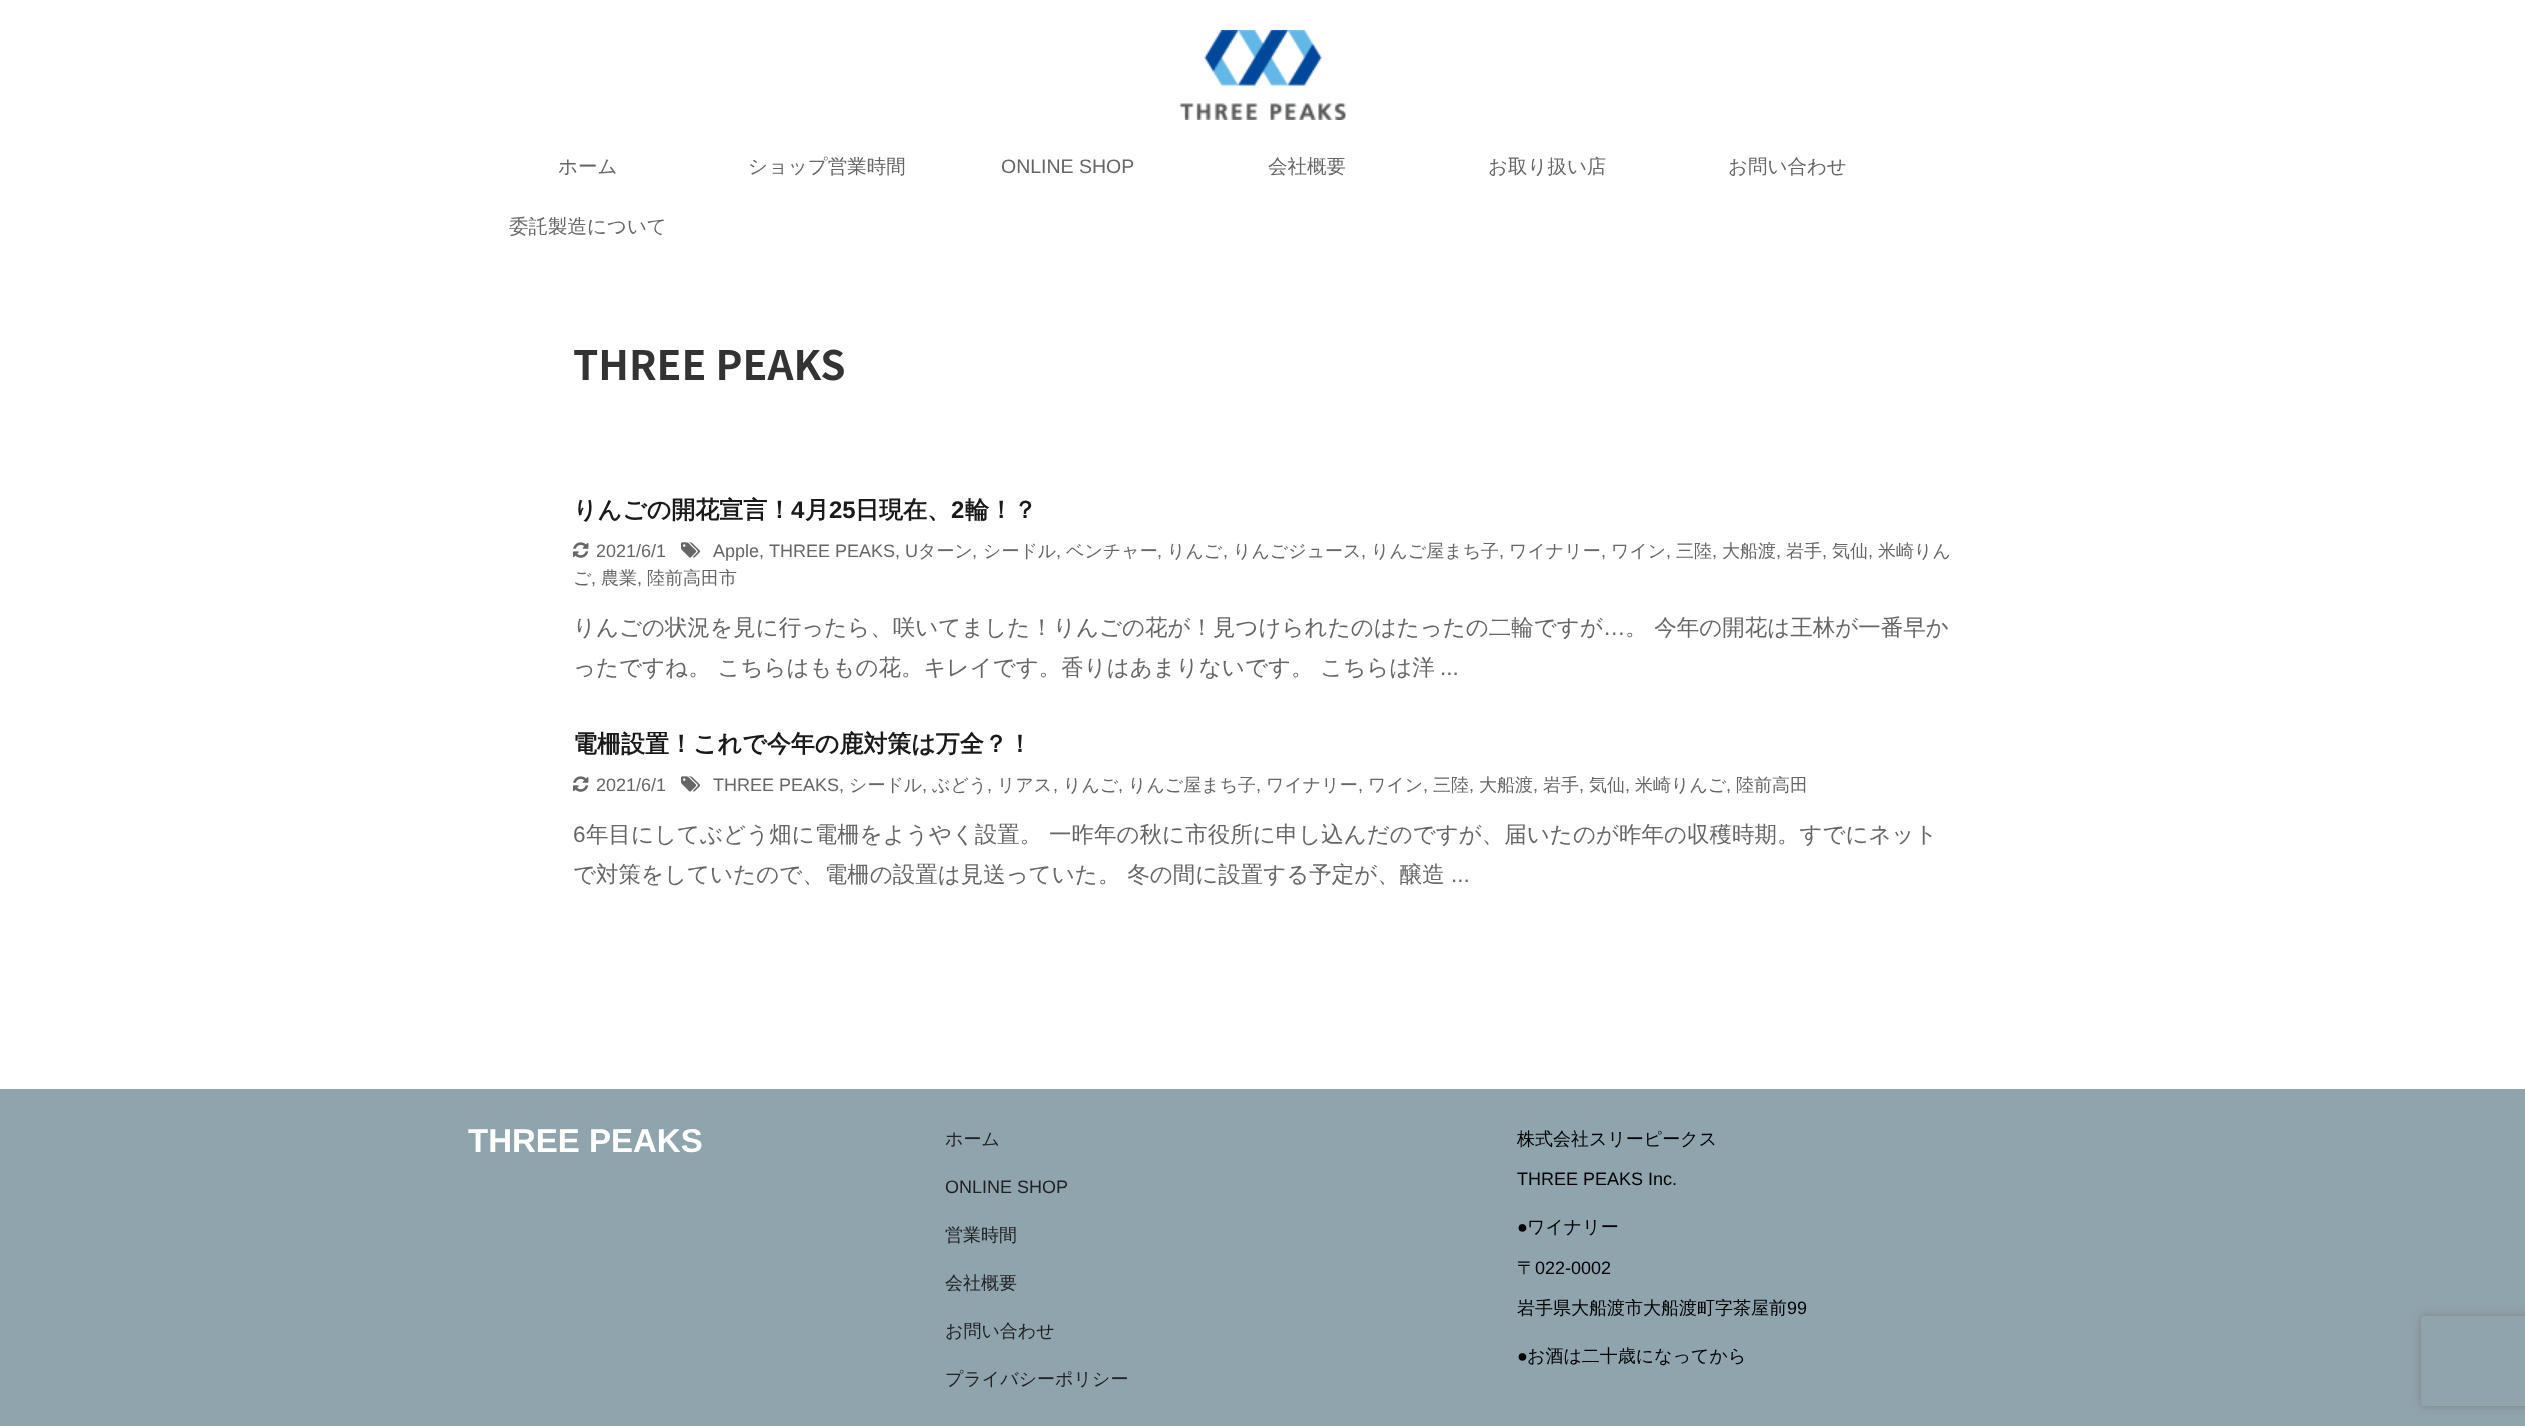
<!DOCTYPE html>
<meta charset="utf-8">
<style>body { margin: 0 } canvas { display: block }</style>
<canvas id="canvas" width="2525" height="1426"></canvas>
<img id="img1" src="images/1.png" hidden>
<img id="img2" src="images/2.png" hidden>
<img id="img3" src="images/3.png" hidden>
<script>
window.onload = function () {
    const canvas = document.getElementById('canvas');
    const context = canvas.getContext('2d');
    context.miterLimit = 4;
    context.fontKerning = 'normal';

    context.fillStyle = 'rgb(250, 250, 250)';
    context.fillRect(0, 0, 2525, 1426);
    context.fillStyle = 'rgb(255, 255, 255)';
    context.fillRect(0, 0, 2525, 135);
    context.drawImage(document.getElementById('img1'), 1180, 30, 166, 90);
    context.beginPath();
    context.roundRect(0, 135, 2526, 123, 1.5);
    context.fill();
    context.fillRect(0, 258, 2525, 831);
    context.drawImage(document.getElementById('img2'), 681, 542, 20, 16);
    context.drawImage(document.getElementById('img3'), 573, 542, 16, 16);
    context.drawImage(document.getElementById('img3'), 573, 776, 16, 16);
    context.drawImage(document.getElementById('img2'), 681, 776, 20, 16);
    context.fillStyle = 'rgb(144, 164, 174)';
    context.fillRect(0, 1089, 2525, 337);
    context.save();
    context.beginPath();
    context.moveTo(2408, 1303);
    context.lineTo(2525, 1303);
    context.lineTo(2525, 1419);
    context.lineTo(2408, 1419);
    context.closePath();
    context.moveTo(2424, 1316);
    context.lineTo(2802, 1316);
    context.bezierCurveTo(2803.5, 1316, 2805, 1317.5, 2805, 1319);
    context.lineTo(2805, 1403);
    context.bezierCurveTo(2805, 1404.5, 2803.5, 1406, 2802, 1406);
    context.lineTo(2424, 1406);
    context.bezierCurveTo(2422.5, 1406, 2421, 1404.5, 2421, 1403);
    context.lineTo(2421, 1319);
    context.bezierCurveTo(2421, 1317.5, 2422.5, 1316, 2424, 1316);
    context.closePath();
    context.clip('evenodd');
    context.fillStyle = 'rgb(128, 128, 128)';
    context.filter = 'blur(4px)';
    context.beginPath();
    context.roundRect(2421, 1316, 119, 90, 3);
    context.fill();
    context.filter = 'none';
    context.restore();
    context.font = '500 19.5px WenQuanYi Zen Hei';
    context.fillStyle = 'rgb(102, 102, 102)';
    context.fillText('ホーム', 558, 173);
    context.fillText('ショップ営業時間', 748, 173);
    context.font = '19.5px Liberation Sans';
    context.fillText('ONLINE SHOP', 1001, 173);
    context.font = '500 19.5px WenQuanYi Zen Hei';
    context.fillText('会社概要', 1268, 173);
    context.fillText('お取り扱い店', 1488, 173);
    context.fillText('お問い合わせ', 1728, 173);
    context.fillText('委託製造について', 509, 233);
    context.font = 'bold 40.5px Noto Sans JP';
    context.fillStyle = 'rgb(51, 51, 51)';
    context.fillText('THREE PEAKS', 573, 380);
    context.font = 'bold 24px WenQuanYi Zen Hei';
    context.fillStyle = 'rgb(26, 26, 26)';
    context.fillText('りんごの開花宣言！', 573, 518);
    context.font = 'bold 24px Liberation Sans';
    context.fillText('4', 791, 518);
    context.font = 'bold 24px WenQuanYi Zen Hei';
    context.fillText('月', 805, 518);
    context.font = 'bold 24px Liberation Sans';
    context.fillText('25', 829, 518);
    context.font = 'bold 24px WenQuanYi Zen Hei';
    context.fillText('日現在、', 855, 518);
    context.font = 'bold 24px Liberation Sans';
    context.fillText('2', 951, 518);
    context.font = 'bold 24px WenQuanYi Zen Hei';
    context.fillText('輪！？', 965, 518);
    context.font = '18px Liberation Sans';
    context.fillStyle = 'rgb(102, 102, 102)';
    context.fillText('Apple,', 713, 557);
    context.fillText('THREE PEAKS, U', 769, 557);
    context.font = '500 18px WenQuanYi Zen Hei';
    context.fillText('ターン', 918, 557);
    context.font = '18px Liberation Sans';
    context.fillText(',', 972, 557);
    context.font = '500 18px WenQuanYi Zen Hei';
    context.fillText('シードル', 983, 557);
    context.font = '18px Liberation Sans';
    context.fillText(',', 1056, 557);
    context.font = '500 18px WenQuanYi Zen Hei';
    context.fillText('ベンチャー', 1066, 557);
    context.font = '18px Liberation Sans';
    context.fillText(',', 1157, 557);
    context.font = '500 18px WenQuanYi Zen Hei';
    context.fillText('りんご', 1167, 557);
    context.font = '18px Liberation Sans';
    context.fillText(',', 1223, 557);
    context.font = '500 18px WenQuanYi Zen Hei';
    context.fillText('りんごジュース', 1233, 557);
    context.font = '18px Liberation Sans';
    context.fillText(',', 1361, 557);
    context.font = '500 18px WenQuanYi Zen Hei';
    context.fillText('りんご屋まち子', 1371, 557);
    context.font = '18px Liberation Sans';
    context.fillText(',', 1499, 557);
    context.font = '500 18px WenQuanYi Zen Hei';
    context.fillText('ワイナリー', 1509, 557);
    context.font = '18px Liberation Sans';
    context.fillText(',', 1601, 557);
    context.font = '500 18px WenQuanYi Zen Hei';
    context.fillText('ワイン', 1611, 557);
    context.font = '18px Liberation Sans';
    context.fillText(',', 1666, 557);
    context.font = '500 18px WenQuanYi Zen Hei';
    context.fillText('三陸', 1676, 557);
    context.font = '18px Liberation Sans';
    context.fillText(',', 1712, 557);
    context.font = '500 18px WenQuanYi Zen Hei';
    context.fillText('大船渡', 1722, 557);
    context.font = '18px Liberation Sans';
    context.fillText(',', 1776, 557);
    context.font = '500 18px WenQuanYi Zen Hei';
    context.fillText('岩手', 1786, 557);
    context.font = '18px Liberation Sans';
    context.fillText(',', 1822, 557);
    context.font = '500 18px WenQuanYi Zen Hei';
    context.fillText('気仙', 1832, 557);
    context.font = '18px Liberation Sans';
    context.fillText(',', 1868, 557);
    context.font = '500 18px WenQuanYi Zen Hei';
    context.fillText('米崎りん', 1878, 557);
    context.fillText('ご', 573, 584);
    context.font = '18px Liberation Sans';
    context.fillText(',', 591, 584);
    context.font = '500 18px WenQuanYi Zen Hei';
    context.fillText('農業', 601, 584);
    context.font = '18px Liberation Sans';
    context.fillText(',', 637, 584);
    context.font = '500 18px WenQuanYi Zen Hei';
    context.fillText('陸前高田市', 647, 584);
    context.font = '18px Liberation Sans';
    context.fillText('2021/6/1', 596, 557);
    context.font = '500 22.5px WenQuanYi Zen Hei';
    context.fillText('りんごの状況を見に行ったら、咲いてました！りんごの花が！見つけられたのはたったの二輪ですが', 573, 635);
    context.font = '22.5px Liberation Sans';
    context.fillText('…', 1603, 635);
    context.font = '500 22.5px WenQuanYi Zen Hei';
    context.fillText('。 今年の開花は王林が一番早か', 1625, 635);
    context.fillText('ったですね。 こちらはももの花。キレイです。香りはあまりないです。 こちらは洋', 573, 675);
    context.font = '22.5px Liberation Sans';
    context.fillText('...', 1440, 675);
    context.font = 'bold 24px WenQuanYi Zen Hei';
    context.fillStyle = 'rgb(26, 26, 26)';
    context.fillText('電柵設置！これで今年の鹿対策は万全？！', 573, 752);
    context.font = '18px Liberation Sans';
    context.fillStyle = 'rgb(102, 102, 102)';
    context.fillText('2021/6/1', 596, 791);
    context.fillText('THREE PEAKS,', 713, 791);
    context.font = '500 18px WenQuanYi Zen Hei';
    context.fillText('シードル', 849, 791);
    context.font = '18px Liberation Sans';
    context.fillText(',', 922, 791);
    context.font = '500 18px WenQuanYi Zen Hei';
    context.fillText('ぶどう', 932, 791);
    context.font = '18px Liberation Sans';
    context.fillText(',', 987, 791);
    context.font = '500 18px WenQuanYi Zen Hei';
    context.fillText('リアス', 997, 791);
    context.font = '18px Liberation Sans';
    context.fillText(',', 1053, 791);
    context.font = '500 18px WenQuanYi Zen Hei';
    context.fillText('りんご', 1063, 791);
    context.font = '18px Liberation Sans';
    context.fillText(',', 1118, 791);
    context.font = '500 18px WenQuanYi Zen Hei';
    context.fillText('りんご屋まち子', 1128, 791);
    context.font = '18px Liberation Sans';
    context.fillText(',', 1256, 791);
    context.font = '500 18px WenQuanYi Zen Hei';
    context.fillText('ワイナリー', 1266, 791);
    context.font = '18px Liberation Sans';
    context.fillText(',', 1358, 791);
    context.font = '500 18px WenQuanYi Zen Hei';
    context.fillText('ワイン', 1368, 791);
    context.font = '18px Liberation Sans';
    context.fillText(',', 1423, 791);
    context.font = '500 18px WenQuanYi Zen Hei';
    context.fillText('三陸', 1433, 791);
    context.font = '18px Liberation Sans';
    context.fillText(',', 1469, 791);
    context.font = '500 18px WenQuanYi Zen Hei';
    context.fillText('大船渡', 1479, 791);
    context.font = '18px Liberation Sans';
    context.fillText(',', 1533, 791);
    context.font = '500 18px WenQuanYi Zen Hei';
    context.fillText('岩手', 1543, 791);
    context.font = '18px Liberation Sans';
    context.fillText(',', 1579, 791);
    context.font = '500 18px WenQuanYi Zen Hei';
    context.fillText('気仙', 1589, 791);
    context.font = '18px Liberation Sans';
    context.fillText(',', 1625, 791);
    context.font = '500 18px WenQuanYi Zen Hei';
    context.fillText('米崎りんご', 1635, 791);
    context.font = '18px Liberation Sans';
    context.fillText(',', 1726, 791);
    context.font = '500 18px WenQuanYi Zen Hei';
    context.fillText('陸前高田', 1736, 791);
    context.font = '22.5px Liberation Sans';
    context.fillText('6', 573, 842);
    context.font = '500 22.5px WenQuanYi Zen Hei';
    context.fillText('年目にしてぶどう畑に電柵をようやく設置。 一昨年の秋に市役所に申し込んだのですが、届いたのが昨年の収穫時期。すでにネット', 586, 842);
    context.fillText('で対策をしていたので、電柵の設置は見送っていた。 冬の間に設置する予定が、醸造', 573, 882);
    context.font = '22.5px Liberation Sans';
    context.fillText('...', 1451, 882);
    context.font = 'bold 33px Liberation Sans';
    context.fillStyle = 'rgb(255, 255, 255)';
    context.fillText('THREE PEAKS', 468, 1152);
    context.font = '500 18px WenQuanYi Zen Hei';
    context.fillStyle = 'rgb(33, 33, 33)';
    context.fillText('ホーム', 945, 1145);
    context.font = '18px Liberation Sans';
    context.fillText('ONLINE SHOP', 945, 1193);
    context.font = '500 18px WenQuanYi Zen Hei';
    context.fillText('営業時間', 945, 1241);
    context.fillText('会社概要', 945, 1289);
    context.fillText('お問い合わせ', 945, 1337);
    context.fillText('プライバシーポリシー', 945, 1385);
    context.fillStyle = 'rgb(0, 0, 0)';
    context.fillText('株式会社スリーピークス', 1517, 1145);
    context.font = '18px Liberation Sans';
    context.fillText('THREE PEAKS Inc.', 1517, 1185);
    context.fillText('●', 1517, 1233);
    context.font = '500 18px WenQuanYi Zen Hei';
    context.fillText('ワイナリー', 1527, 1233);
    context.fillText('〒', 1517, 1274);
    context.font = '18px Liberation Sans';
    context.fillText('022-0002', 1535, 1274);
    context.font = '500 18px WenQuanYi Zen Hei';
    context.fillText('岩手県大船渡市大船渡町字茶屋前', 1517, 1314);
    context.font = '18px Liberation Sans';
    context.fillText('99', 1787, 1314);
    context.fillText('●', 1517, 1362);
    context.font = '500 18px WenQuanYi Zen Hei';
    context.fillText('お酒は二十歳になってから', 1527, 1362);
};
</script>
